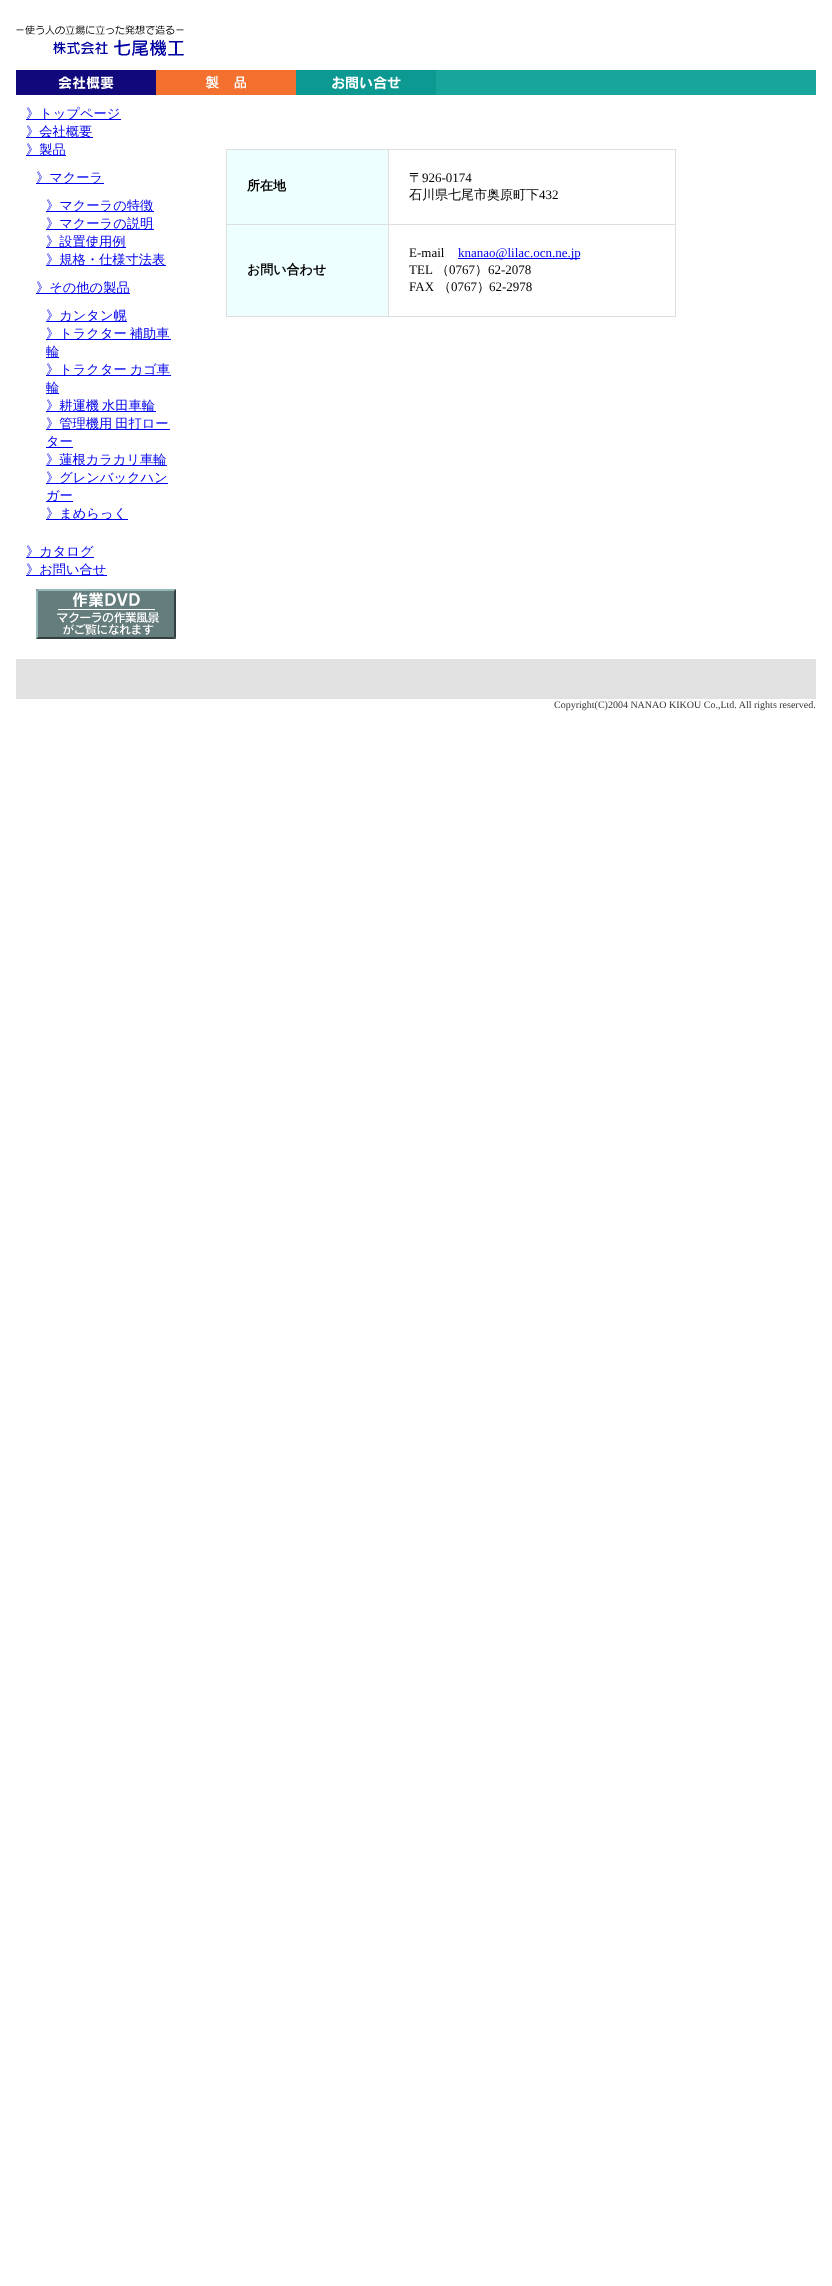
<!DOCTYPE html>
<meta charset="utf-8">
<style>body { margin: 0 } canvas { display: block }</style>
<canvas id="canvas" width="832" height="2286"></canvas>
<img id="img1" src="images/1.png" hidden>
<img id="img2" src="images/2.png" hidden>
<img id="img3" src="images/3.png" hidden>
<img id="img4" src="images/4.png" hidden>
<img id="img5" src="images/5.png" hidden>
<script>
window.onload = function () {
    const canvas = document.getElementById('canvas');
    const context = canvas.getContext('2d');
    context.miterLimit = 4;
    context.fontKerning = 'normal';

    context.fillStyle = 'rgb(255, 255, 255)';
    context.fillRect(0, 0, 832, 2286);
    context.drawImage(document.getElementById('img1'), 16, 25, 168, 31);
    context.fillStyle = 'rgb(24, 165, 156)';
    context.fillRect(436, 70, 380, 25);
    context.drawImage(document.getElementById('img2'), 16, 70, 140, 25);
    context.drawImage(document.getElementById('img3'), 156, 70, 140, 25);
    context.drawImage(document.getElementById('img4'), 296, 70, 140, 25);
    context.fillStyle = 'rgb(0, 0, 238)';
    context.fillRect(26, 119, 95, 1);
    context.fillRect(26, 137, 67, 1);
    context.fillRect(26, 155, 40, 1);
    context.fillRect(36, 183, 68, 1);
    context.fillRect(46, 211, 108, 1);
    context.fillRect(46, 229, 108, 1);
    context.fillRect(46, 247, 80, 1);
    context.fillRect(46, 265, 120, 1);
    context.fillRect(36, 293, 94, 1);
    context.fillRect(46, 321, 81, 1);
    context.fillRect(46, 339, 125, 1);
    context.fillRect(46, 357, 13, 1);
    context.fillRect(46, 375, 125, 1);
    context.fillRect(46, 393, 13, 1);
    context.fillRect(46, 411, 110, 1);
    context.fillRect(46, 429, 124, 1);
    context.fillRect(46, 447, 27, 1);
    context.fillRect(46, 465, 121, 1);
    context.fillRect(46, 483, 122, 1);
    context.fillRect(46, 501, 27, 1);
    context.fillRect(46, 519, 82, 1);
    context.fillRect(26, 557, 68, 1);
    context.fillRect(26, 575, 81, 1);
    context.drawImage(document.getElementById('img5'), 36, 589, 140, 50);
    context.fillStyle = 'rgb(222, 222, 222)';
    context.fillRect(226, 149, 450, 1);
    context.fillRect(675, 149, 1, 168);
    context.fillRect(226, 316, 450, 1);
    context.fillRect(226, 149, 1, 168);
    context.fillStyle = 'rgb(238, 255, 255)';
    context.fillRect(227, 150, 161, 74);
    context.fillStyle = 'rgb(222, 222, 222)';
    context.fillRect(388, 224, 288, 1);
    context.fillRect(388, 224, 1, 93);
    context.fillRect(226, 224, 163, 1);
    context.fillRect(388, 149, 1, 76);
    context.fillStyle = 'rgb(238, 255, 255)';
    context.fillRect(227, 225, 161, 91);
    context.fillStyle = 'rgb(0, 0, 238)';
    context.fillRect(458, 258, 122, 1);
    context.fillStyle = 'rgb(225, 225, 225)';
    context.fillRect(16, 659, 800, 40);
    context.font = '500 13.25px WenQuanYi Zen Hei';
    context.fillStyle = 'rgb(0, 0, 238)';
    context.fillText('》トップページ', 26, 118);
    context.fillText('》会社概要', 26, 136);
    context.fillText('》製品', 26, 154);
    context.fillText('》マクーラ', 36, 182);
    context.fillText('》マクーラの特徴', 46, 210);
    context.fillText('》マクーラの説明', 46, 228);
    context.fillText('》設置使用例', 46, 246);
    context.fillText('》規格・仕様寸法表', 46, 264);
    context.fillText('》その他の製品', 36, 292);
    context.fillText('》カンタン幌', 46, 320);
    context.wordSpacing = '-1px';
    context.fillText('》トラクター 補助車', 46, 338);
    context.wordSpacing = '0px';
    context.fillText('輪', 46, 356);
    context.wordSpacing = '-1px';
    context.fillText('》トラクター カゴ車', 46, 374);
    context.wordSpacing = '0px';
    context.fillText('輪', 46, 392);
    context.wordSpacing = '-1px';
    context.fillText('》耕運機 水田車輪', 46, 410);
    context.fillText('》管理機用 田打ロー', 46, 428);
    context.wordSpacing = '0px';
    context.fillText('ター', 46, 446);
    context.fillText('》蓮根カラカリ車輪', 46, 464);
    context.fillText('》グレンバックハン', 46, 482);
    context.fillText('ガー', 46, 500);
    context.fillText('》まめらっく', 46, 518);
    context.fillText('》カタログ', 26, 556);
    context.fillText('》お問い合せ', 26, 574);
    context.font = 'bold 13px WenQuanYi Zen Hei';
    context.fillStyle = 'rgb(0, 0, 0)';
    context.fillText('所在地', 247, 190);
    context.font = '500 13px WenQuanYi Zen Hei';
    context.fillText('〒', 409, 182);
    context.font = '13px Liberation Serif';
    context.fillText('926-0174', 422, 182);
    context.font = '500 13px WenQuanYi Zen Hei';
    context.fillText('石川県七尾市奥原町下', 409, 199);
    context.font = '13px Liberation Serif';
    context.fillText('432', 539, 199);
    context.font = 'bold 13px WenQuanYi Zen Hei';
    context.fillText('お問い合わせ', 247, 274);
    context.font = '13px Liberation Serif';
    context.fillText('E-mail', 409, 257);
    context.fillStyle = 'rgb(0, 0, 238)';
    context.fillText('knanao@lilac.ocn.ne.jp', 458, 257);
    context.fillStyle = 'rgb(0, 0, 0)';
    context.fillText('TEL', 409, 274);
    context.font = '500 13px WenQuanYi Zen Hei';
    context.fillText('（', 436, 274);
    context.font = '13px Liberation Serif';
    context.fillText('0767', 449, 274);
    context.font = '500 13px WenQuanYi Zen Hei';
    context.fillText('）', 475, 274);
    context.font = '13px Liberation Serif';
    context.fillText('62-2078', 488, 274);
    context.fillText('FAX', 409, 291);
    context.font = '500 13px WenQuanYi Zen Hei';
    context.fillText('（', 438, 291);
    context.font = '13px Liberation Serif';
    context.fillText('0767', 451, 291);
    context.font = '500 13px WenQuanYi Zen Hei';
    context.fillText('）', 477, 291);
    context.font = '13px Liberation Serif';
    context.fillText('62-2978', 489, 291);
    context.font = '10px Liberation Serif';
    context.fillStyle = 'rgb(51, 51, 51)';
    context.fillText('Copyright(C)2004 NANAO KIKOU Co.,Ltd. All rights reserved.', 554, 708);
};
</script>
